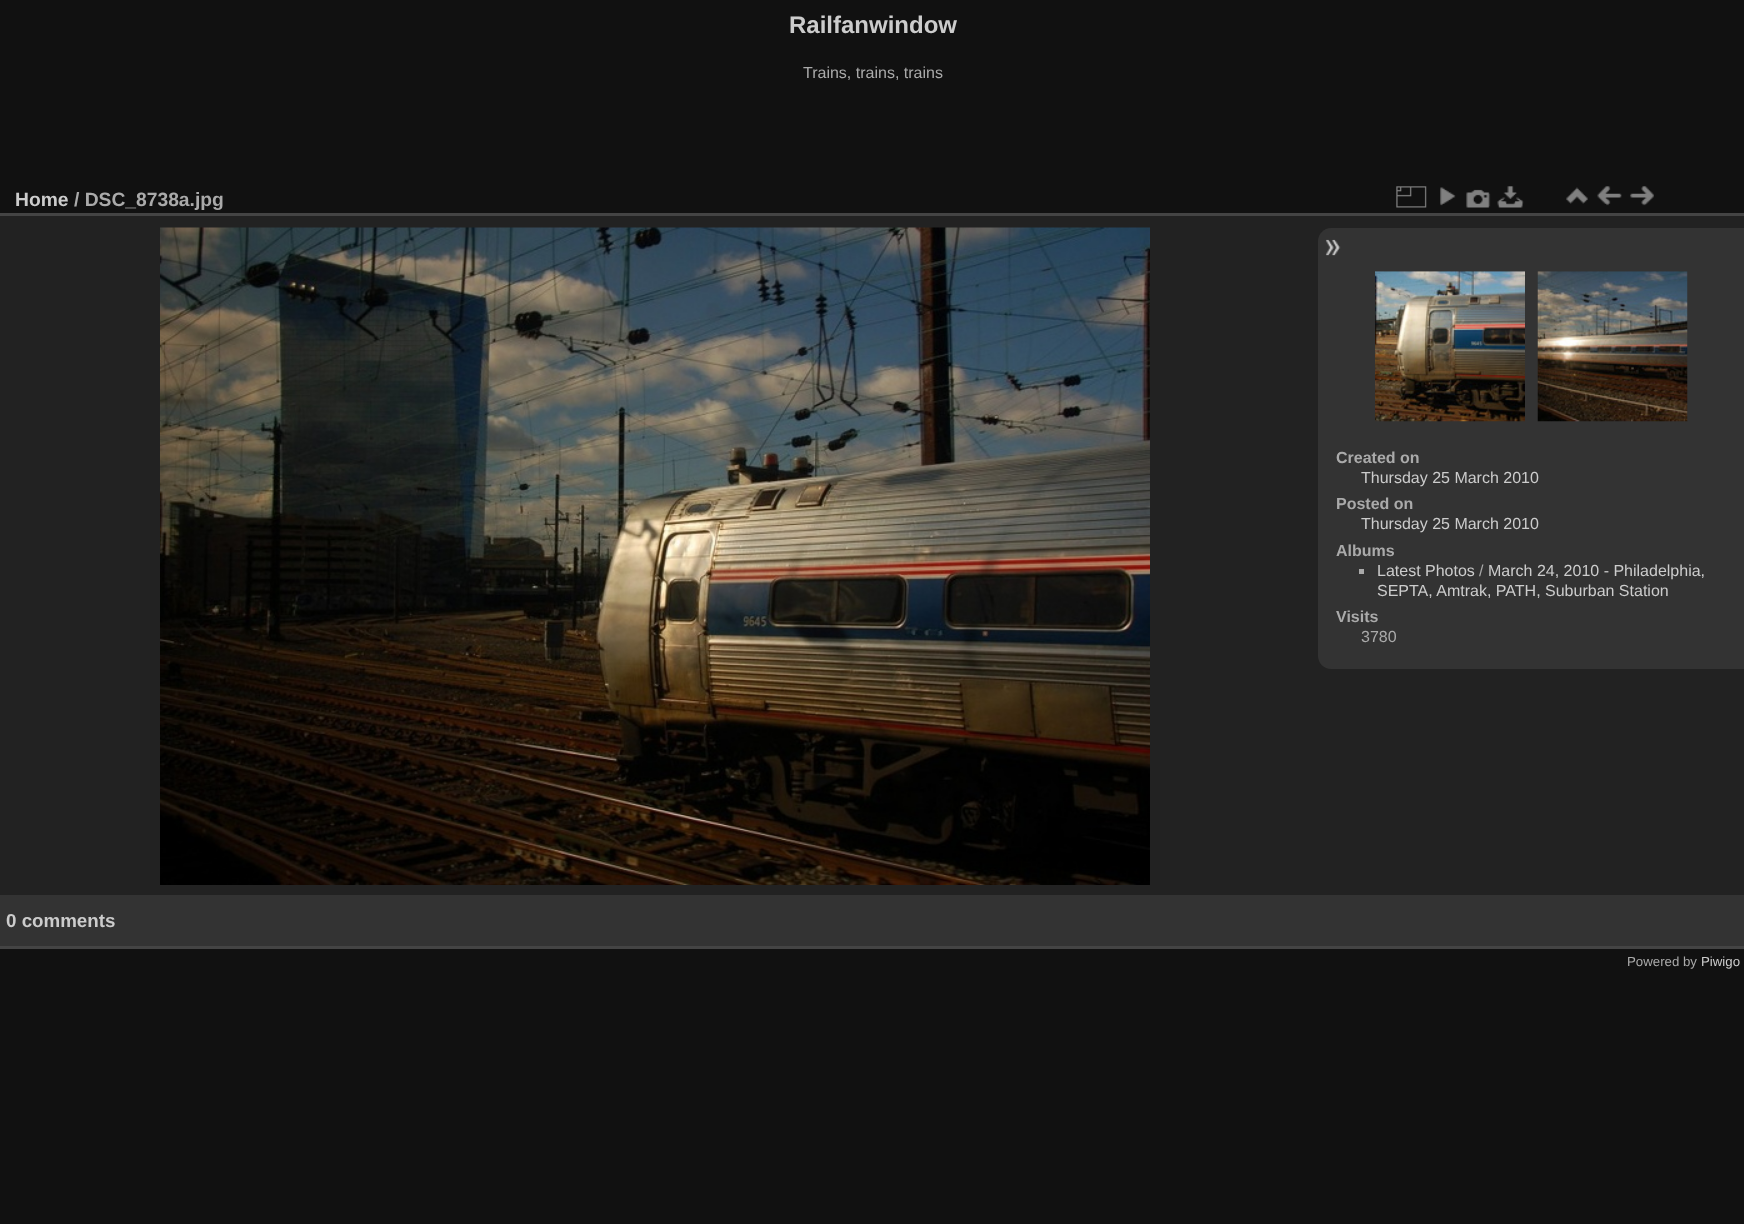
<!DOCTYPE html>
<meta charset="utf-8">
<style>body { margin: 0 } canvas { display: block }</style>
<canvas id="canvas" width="1744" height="1224"></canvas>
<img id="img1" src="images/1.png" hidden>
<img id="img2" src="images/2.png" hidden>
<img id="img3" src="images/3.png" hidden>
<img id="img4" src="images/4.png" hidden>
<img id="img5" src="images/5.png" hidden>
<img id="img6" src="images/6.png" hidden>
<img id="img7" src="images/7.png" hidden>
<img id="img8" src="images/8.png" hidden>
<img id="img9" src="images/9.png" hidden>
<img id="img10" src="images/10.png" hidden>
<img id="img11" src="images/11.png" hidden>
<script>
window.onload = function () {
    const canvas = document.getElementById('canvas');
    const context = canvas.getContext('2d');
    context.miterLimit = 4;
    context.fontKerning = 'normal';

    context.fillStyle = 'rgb(17, 17, 17)';
    context.fillRect(0, 0, 1744, 1224);
    context.fillStyle = 'rgb(34, 34, 34)';
    context.fillRect(0, 216, 1744, 679);
    context.fillStyle = 'rgb(68, 68, 68)';
    context.fillRect(0, 946, 1744, 3);
    context.fillRect(0, 213, 1744, 3);
    context.drawImage(document.getElementById('img1'), 1396, 186, 31, 22);
    context.drawImage(document.getElementById('img2'), 1440, 187, 16, 19);
    context.drawImage(document.getElementById('img3'), 1466, 189, 25, 19);
    context.drawImage(document.getElementById('img4'), 1497, 186, 27, 22);
    context.drawImage(document.getElementById('img5'), 1566, 187, 22, 17);
    context.drawImage(document.getElementById('img6'), 1597, 186, 25, 20);
    context.drawImage(document.getElementById('img7'), 1630, 186, 24, 20);
    context.drawImage(document.getElementById('img8'), 160, 227, 990, 658);
    context.fillStyle = 'rgb(51, 51, 51)';
    context.beginPath();
    context.moveTo(1331, 228);
    context.lineTo(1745, 228);
    context.lineTo(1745, 669);
    context.lineTo(1331, 669);
    context.bezierCurveTo(1324, 669, 1318, 663, 1318, 656);
    context.lineTo(1318, 241);
    context.bezierCurveTo(1318, 234, 1324, 228, 1331, 228);
    context.closePath();
    context.fill();
    context.drawImage(document.getElementById('img9'), 1325, 239, 16, 17);
    context.drawImage(document.getElementById('img10'), 1375, 271, 150, 151);
    context.drawImage(document.getElementById('img11'), 1537, 271, 151, 151);
    context.fillStyle = 'rgb(170, 170, 170)';
    context.fillRect(1359, 569, 5, 5);
    context.fillStyle = 'rgb(51, 51, 51)';
    context.fillRect(0, 895, 1744, 51);
    context.font = 'bold 24px Liberation Sans';
    context.fillStyle = 'rgb(204, 204, 204)';
    context.fillText('Railfanwindow', 789, 33);
    context.font = '16px Liberation Sans';
    context.fillStyle = 'rgb(170, 170, 170)';
    context.fillText('Trains, trains, trains', 803, 78);
    context.font = 'bold 19.25px Liberation Sans';
    context.fillStyle = 'rgb(204, 204, 204)';
    context.fillText('Home', 15, 206);
    context.fillStyle = 'rgb(170, 170, 170)';
    context.fillText('/ DSC_8738a.jpg', 74, 206);
    context.font = 'bold 16px Liberation Sans';
    context.fillText('Created on', 1336, 463);
    context.font = '16px Liberation Sans';
    context.fillStyle = 'rgb(204, 204, 204)';
    context.fillText('Thursday 25 March 2010', 1361, 483);
    context.font = 'bold 16px Liberation Sans';
    context.fillStyle = 'rgb(170, 170, 170)';
    context.fillText('Posted on', 1336, 509);
    context.font = '16px Liberation Sans';
    context.fillStyle = 'rgb(204, 204, 204)';
    context.fillText('Thursday 25 March 2010', 1361, 529);
    context.font = 'bold 16px Liberation Sans';
    context.fillStyle = 'rgb(170, 170, 170)';
    context.fillText('Albums', 1336, 556);
    context.font = '16px Liberation Sans';
    context.fillStyle = 'rgb(204, 204, 204)';
    context.fillText('Latest Photos', 1377, 576);
    context.fillStyle = 'rgb(170, 170, 170)';
    context.fillText('/', 1479, 576);
    context.fillStyle = 'rgb(204, 204, 204)';
    context.fillText('March 24, 2010 - Philadelphia,', 1488, 576);
    context.fillText('SEPTA, Amtrak, PATH, Suburban Station', 1377, 596);
    context.font = 'bold 16px Liberation Sans';
    context.fillStyle = 'rgb(170, 170, 170)';
    context.fillText('Visits', 1336, 622);
    context.font = '16px Liberation Sans';
    context.fillText('3780', 1361, 642);
    context.font = 'bold 18.75px Liberation Sans';
    context.fillStyle = 'rgb(204, 204, 204)';
    context.fillText('0 comments', 6, 927);
    context.font = '13.25px Liberation Sans';
    context.fillStyle = 'rgb(170, 170, 170)';
    context.fillText('Powered by', 1627, 966);
    context.fillStyle = 'rgb(204, 204, 204)';
    context.fillText('Piwigo', 1701, 966);
};
</script>
